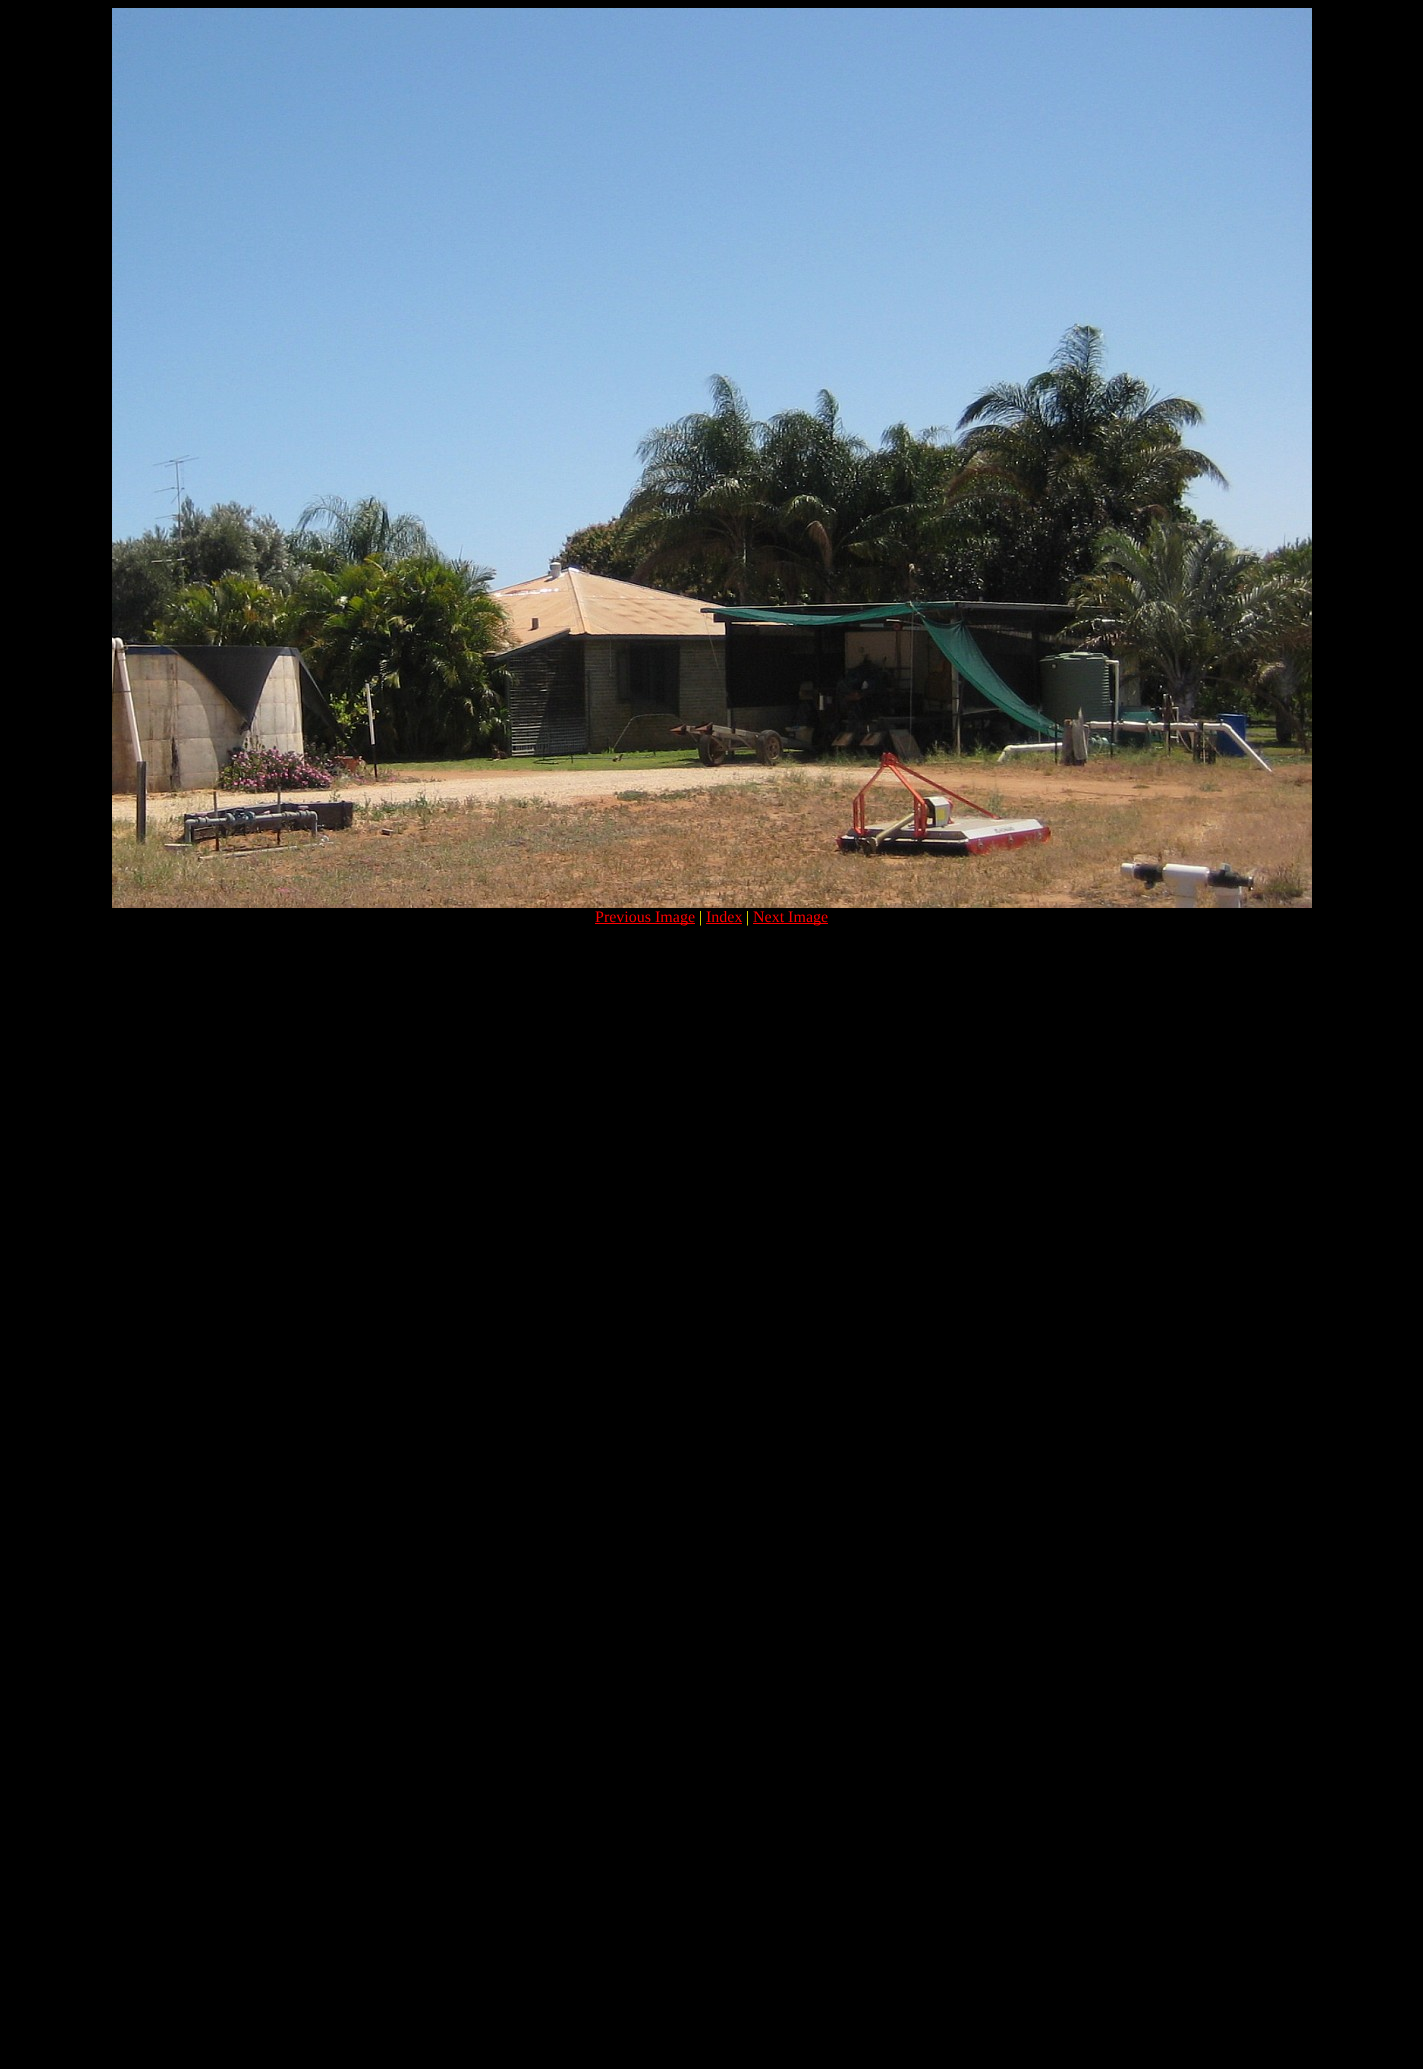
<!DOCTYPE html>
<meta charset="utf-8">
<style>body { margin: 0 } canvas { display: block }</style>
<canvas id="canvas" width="1423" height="2069"></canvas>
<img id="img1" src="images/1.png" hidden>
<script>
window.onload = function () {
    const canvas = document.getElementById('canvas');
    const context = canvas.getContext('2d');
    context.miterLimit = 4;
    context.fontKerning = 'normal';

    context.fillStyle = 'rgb(0, 0, 0)';
    context.fillRect(0, 0, 1423, 2069);
    context.drawImage(document.getElementById('img1'), 112, 8, 1200, 900);
    context.fillStyle = 'rgb(255, 0, 0)';
    context.fillRect(595, 923, 100, 1);
    context.fillRect(706, 923, 36, 1);
    context.fillRect(753, 923, 75, 1);
    context.font = '16px Liberation Serif';
    context.fillText('Previous Image', 595, 922);
    context.fillStyle = 'rgb(255, 255, 0)';
    context.fillText('|', 699, 922);
    context.fillStyle = 'rgb(255, 0, 0)';
    context.fillText('Index', 706, 922);
    context.fillStyle = 'rgb(255, 255, 0)';
    context.fillText('|', 746, 922);
    context.fillStyle = 'rgb(255, 0, 0)';
    context.fillText('Next Image', 753, 922);
};
</script>
